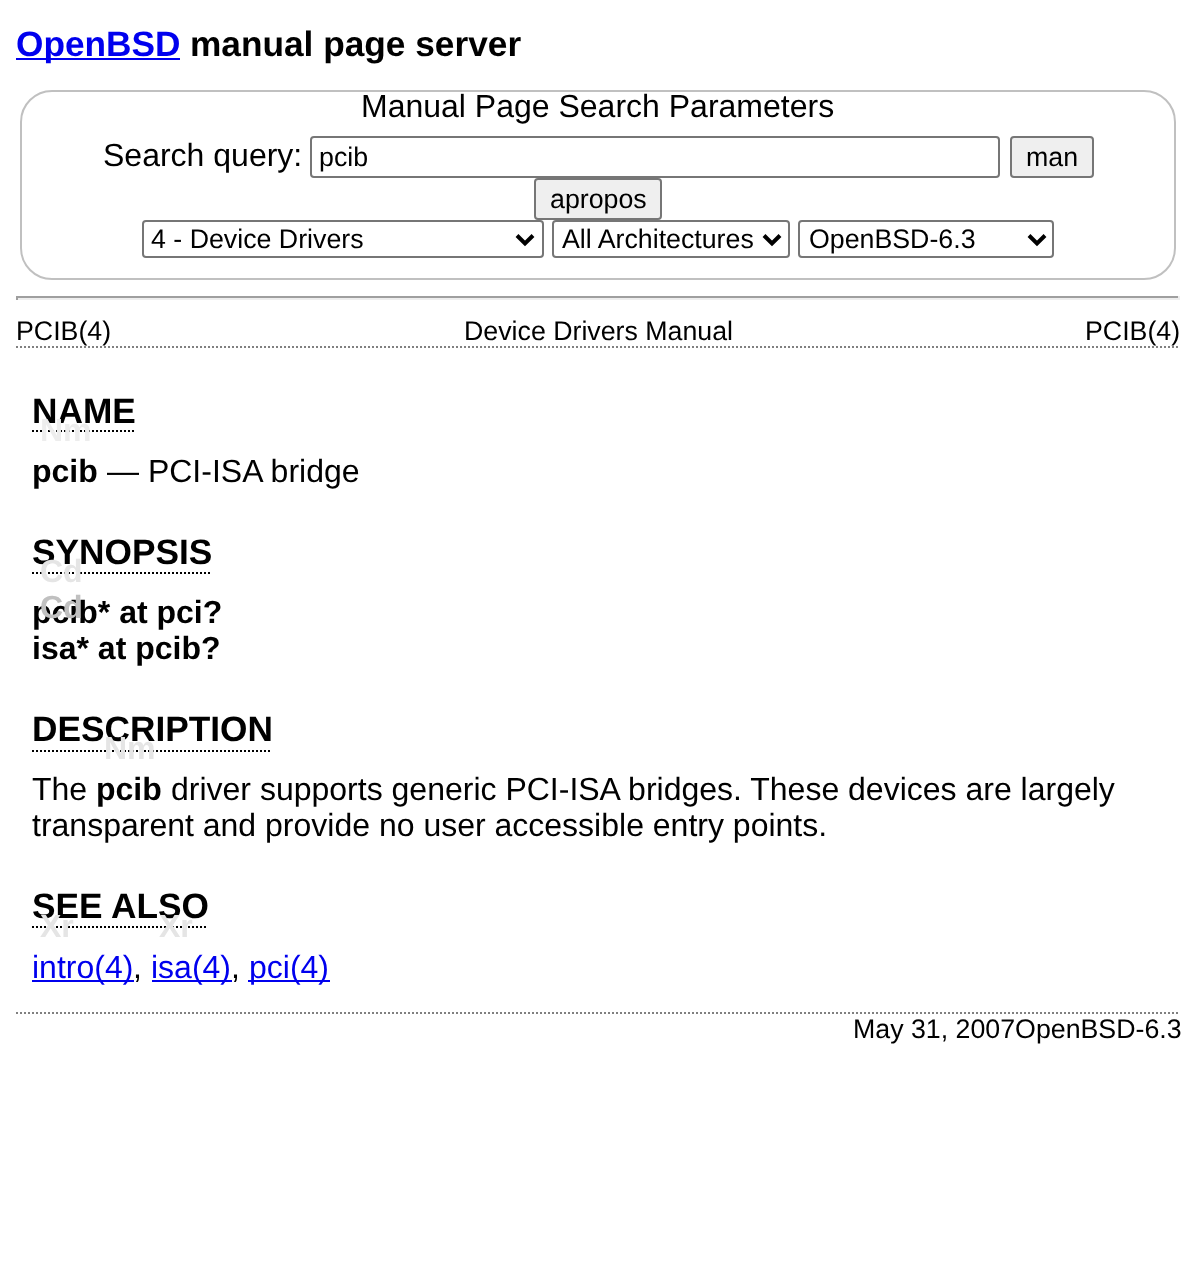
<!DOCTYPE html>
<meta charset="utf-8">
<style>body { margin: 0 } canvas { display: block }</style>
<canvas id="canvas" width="1195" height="1274"></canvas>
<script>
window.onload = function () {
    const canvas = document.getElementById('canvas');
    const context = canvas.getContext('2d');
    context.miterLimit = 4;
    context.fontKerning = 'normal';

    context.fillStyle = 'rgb(255, 255, 255)';
    context.fillRect(0, 0, 1195, 1274);
    context.fillStyle = 'rgb(0, 0, 238)';
    context.fillRect(16, 58, 164, 2);
    context.beginPath();
    context.roundRect(21, 91, 1154, 188, 31);
    context.strokeStyle = 'rgb(192, 192, 192)';
    context.lineWidth = 2;
    context.stroke();
    context.beginPath();
    context.roundRect(311, 137, 688, 40, 3);
    context.strokeStyle = 'rgb(118, 118, 118)';
    context.stroke();
    context.fillStyle = 'rgb(239, 239, 239)';
    context.beginPath();
    context.roundRect(1011, 137, 82, 40, 3);
    context.fill();
    context.stroke();
    context.beginPath();
    context.roundRect(535, 179, 126, 40, 3);
    context.fill();
    context.stroke();
    context.beginPath();
    context.roundRect(143, 221, 400, 36, 3);
    context.stroke();
    context.beginPath();
    context.moveTo(517, 235.5);
    context.lineTo(525, 243.5);
    context.lineTo(533, 235.5);
    context.strokeStyle = 'rgb(0, 0, 0)';
    context.lineWidth = 4;
    context.stroke();
    context.beginPath();
    context.roundRect(553, 221, 236, 36, 3);
    context.strokeStyle = 'rgb(118, 118, 118)';
    context.lineWidth = 2;
    context.stroke();
    context.beginPath();
    context.moveTo(764, 235.5);
    context.lineTo(772, 243.5);
    context.lineTo(780, 235.5);
    context.strokeStyle = 'rgb(0, 0, 0)';
    context.lineWidth = 4;
    context.stroke();
    context.beginPath();
    context.roundRect(799, 221, 254, 36, 3);
    context.strokeStyle = 'rgb(118, 118, 118)';
    context.lineWidth = 2;
    context.stroke();
    context.beginPath();
    context.moveTo(1029, 235.5);
    context.lineTo(1037, 243.5);
    context.lineTo(1045, 235.5);
    context.strokeStyle = 'rgb(0, 0, 0)';
    context.lineWidth = 4;
    context.stroke();
    context.fillStyle = 'rgb(159, 159, 159)';
    context.fillRect(16, 296, 1164, 2);
    context.fillStyle = 'rgb(238, 238, 238)';
    context.fillRect(1178, 296, 2, 4);
    context.fillRect(16, 298, 1164, 2);
    context.fillStyle = 'rgb(159, 159, 159)';
    context.fillRect(16, 296, 2, 4);
    context.beginPath();
    context.moveTo(16, 347);
    context.lineTo(1180, 347);
    context.strokeStyle = 'rgb(128, 128, 128)';
    context.lineWidth = 2;
    context.setLineDash([2, 2]);
    context.stroke();
    context.beginPath();
    context.moveTo(32, 431);
    context.lineTo(136, 431);
    context.strokeStyle = 'rgb(0, 0, 0)';
    context.stroke();
    context.beginPath();
    context.moveTo(32, 573);
    context.lineTo(212, 573);
    context.stroke();
    context.beginPath();
    context.moveTo(32, 751);
    context.lineTo(272, 751);
    context.stroke();
    context.beginPath();
    context.moveTo(32, 927);
    context.lineTo(208, 927);
    context.stroke();
    context.fillStyle = 'rgb(0, 0, 238)';
    context.fillRect(32, 980, 102, 2);
    context.fillRect(152, 980, 80, 2);
    context.fillRect(248, 980, 82, 2);
    context.beginPath();
    context.moveTo(16, 1013);
    context.lineTo(1180, 1013);
    context.strokeStyle = 'rgb(128, 128, 128)';
    context.stroke();
    context.font = 'bold 35.25px Liberation Sans';
    context.fillText('OpenBSD', 16, 56);
    context.fillStyle = 'rgb(0, 0, 0)';
    context.fillText('manual page server', 190, 56);
    context.font = '32px Liberation Sans';
    context.fillText('Manual Page Search Parameters', 361, 117);
    context.fillText('Search query:', 103, 166);
    context.font = '26.75px Liberation Sans';
    context.fillText('pcib', 319, 166);
    context.fillText('man', 1026, 166);
    context.fillText('apropos', 550, 208);
    context.fillText('4 - Device Drivers', 151, 248);
    context.fillText('All Architectures', 562, 248);
    context.fillText('OpenBSD-6.3', 809, 248);
    context.fillText('PCIB(4)', 16, 340);
    context.fillText('Device Drivers Manual', 464, 340);
    context.fillText('PCIB(4)', 1085, 340);
    context.font = 'bold 35.25px Liberation Sans';
    context.fillText('NAME', 32, 423);
    context.font = 'bold 32px Liberation Sans';
    context.fillStyle = 'rgb(237, 237, 237)';
    context.fillText('Nm', 40, 441);
    context.fillStyle = 'rgb(0, 0, 0)';
    context.fillText('pcib', 32, 482);
    context.font = '32px Liberation Sans';
    context.fillText('— PCI-ISA bridge', 107, 482);
    context.font = 'bold 35.25px Liberation Sans';
    context.fillText('SYNOPSIS', 32, 564);
    context.font = 'bold 32px Liberation Sans';
    context.fillStyle = 'rgb(229, 229, 229)';
    context.fillText('Cd', 40, 582);
    context.fillStyle = 'rgb(0, 0, 0)';
    context.fillText('pcib* at pci?', 32, 623);
    context.fillStyle = 'rgb(192, 192, 192)';
    context.fillText('Cd', 40, 618);
    context.fillStyle = 'rgb(0, 0, 0)';
    context.fillText('isa* at pcib?', 32, 659);
    context.font = 'bold 35.25px Liberation Sans';
    context.fillText('DESCRIPTION', 32, 741);
    context.font = '32px Liberation Sans';
    context.fillText('The', 32, 800);
    context.font = 'bold 32px Liberation Sans';
    context.fillStyle = 'rgb(229, 229, 229)';
    context.fillText('Nm', 104, 759);
    context.fillStyle = 'rgb(0, 0, 0)';
    context.fillText('pcib', 96, 800);
    context.font = '32px Liberation Sans';
    context.fillText('driver supports generic PCI-ISA bridges. These devices are largely', 171, 800);
    context.fillText('transparent and provide no user accessible entry points.', 32, 836);
    context.font = 'bold 35.25px Liberation Sans';
    context.fillText('SEE', 32, 918);
    context.fillText('ALSO', 111, 918);
    context.font = 'bold 32px Liberation Sans';
    context.fillStyle = 'rgb(229, 229, 229)';
    context.fillText('Xr', 40, 937);
    context.font = '32px Liberation Sans';
    context.fillStyle = 'rgb(0, 0, 238)';
    context.fillText('intro(4)', 32, 978);
    context.fillStyle = 'rgb(0, 0, 0)';
    context.fillText(',', 133, 978);
    context.font = 'bold 32px Liberation Sans';
    context.fillStyle = 'rgb(229, 229, 229)';
    context.fillText('Xr', 159, 937);
    context.font = '32px Liberation Sans';
    context.fillStyle = 'rgb(0, 0, 238)';
    context.fillText('isa(4)', 151, 978);
    context.fillStyle = 'rgb(0, 0, 0)';
    context.fillText(',', 231, 978);
    context.fillStyle = 'rgb(0, 0, 238)';
    context.fillText('pci(4)', 249, 978);
    context.font = '26.75px Liberation Sans';
    context.fillStyle = 'rgb(0, 0, 0)';
    context.fillText('May 31, 2007OpenBSD-6.3', 853, 1038);
};
</script>
